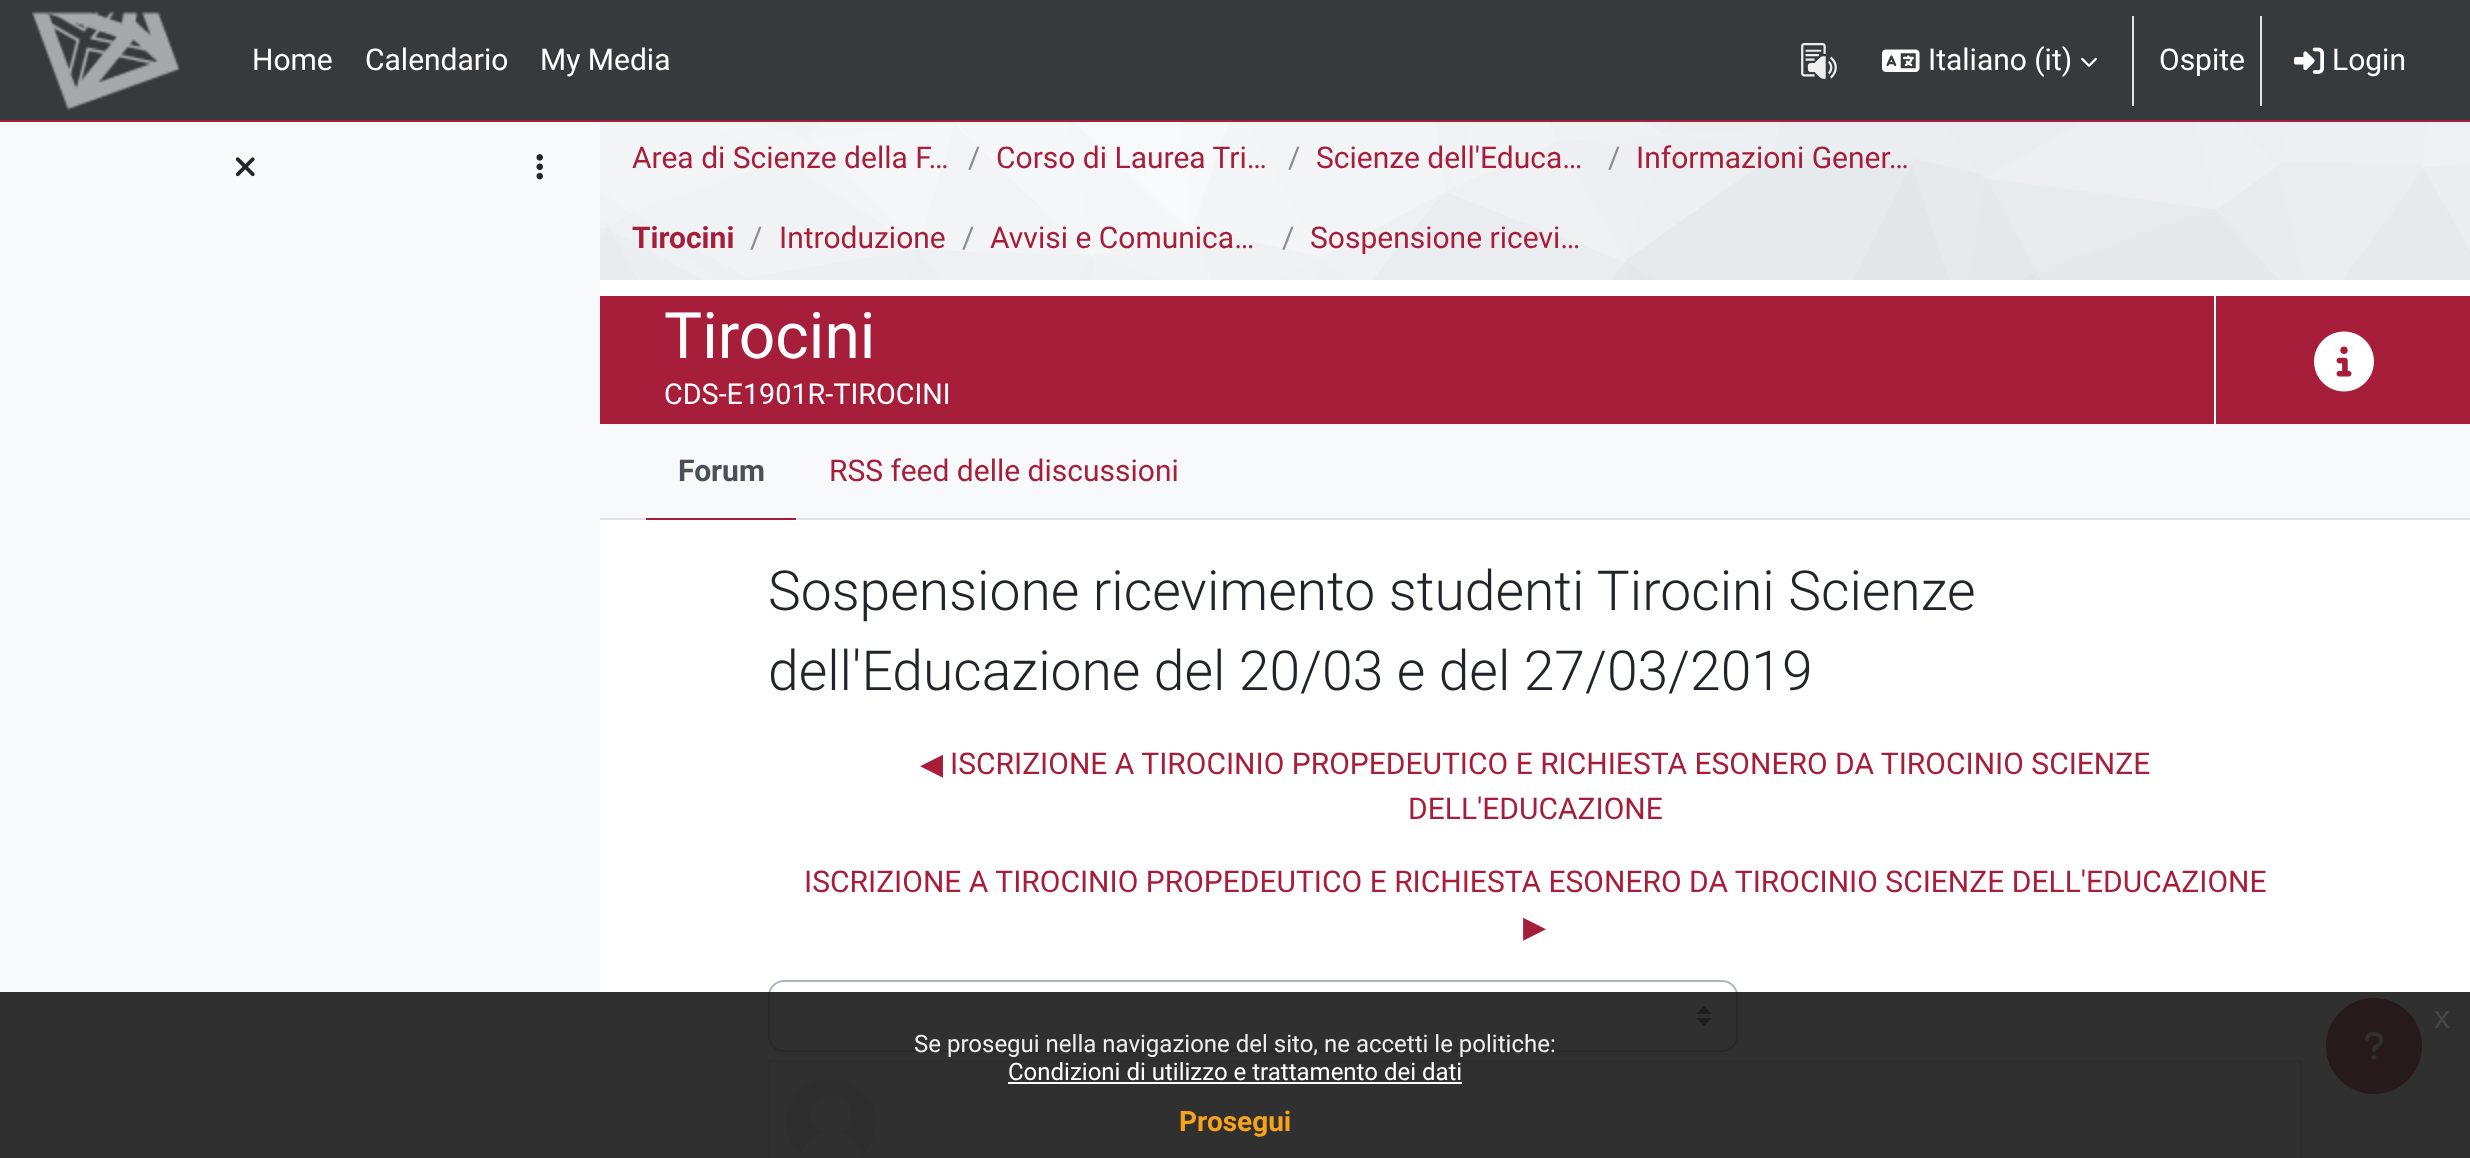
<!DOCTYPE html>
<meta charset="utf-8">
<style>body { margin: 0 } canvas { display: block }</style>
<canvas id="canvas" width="2470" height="1158"></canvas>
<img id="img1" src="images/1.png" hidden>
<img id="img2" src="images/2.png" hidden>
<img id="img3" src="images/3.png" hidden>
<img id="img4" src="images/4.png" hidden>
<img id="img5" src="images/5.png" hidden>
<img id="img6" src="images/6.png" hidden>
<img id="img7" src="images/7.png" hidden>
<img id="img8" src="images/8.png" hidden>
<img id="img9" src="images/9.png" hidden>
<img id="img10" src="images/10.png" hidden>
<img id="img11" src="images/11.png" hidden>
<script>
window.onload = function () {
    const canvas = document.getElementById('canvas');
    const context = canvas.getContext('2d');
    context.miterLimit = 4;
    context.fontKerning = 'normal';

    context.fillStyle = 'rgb(255, 255, 255)';
    context.fillRect(0, 0, 2470, 1158);
    context.fillStyle = 'rgb(55, 58, 60)';
    context.fillRect(0, 0, 2470, 120);
    context.fillStyle = 'rgb(167, 30, 59)';
    context.fillRect(0, 120, 2470, 2);
    context.drawImage(document.getElementById('img1'), 32, 11, 148, 99);
    context.drawImage(document.getElementById('img2'), 1801, 43, 36, 36);
    context.drawImage(document.getElementById('img3'), 1882, 49, 38, 23);
    context.drawImage(document.getElementById('img4'), 2081, 57, 16, 10);
    context.fillStyle = 'rgb(222, 226, 230)';
    context.fillRect(2132, 16, 2, 90);
    context.fillRect(2260, 16, 2, 90);
    context.drawImage(document.getElementById('img5'), 2294, 47, 30, 27);
    context.fillStyle = 'rgb(248, 249, 250)';
    context.fillRect(0, 122, 600, 1036);
    context.drawImage(document.getElementById('img6'), 235, 157, 20, 20);
    context.drawImage(document.getElementById('img7'), 536, 154, 7, 26);
    context.drawImage(document.getElementById('img8'), 600, 122, 1870, 158);
    context.fillStyle = 'rgb(167, 30, 59)';
    context.fillRect(600, 296, 1870, 128);
    context.fillStyle = 'rgb(255, 255, 255)';
    context.fillRect(2214, 296, 2, 128);
    context.drawImage(document.getElementById('img9'), 2314, 331, 60, 61);
    context.fillStyle = 'rgb(248, 249, 250)';
    context.fillRect(600, 424, 1870, 94);
    context.fillStyle = 'rgb(222, 226, 230)';
    context.fillRect(600, 518, 1870, 2);
    context.fillStyle = 'rgb(167, 30, 59)';
    context.fillRect(646, 518, 150, 2);
    context.fillStyle = 'rgb(55, 58, 60)';
    context.beginPath();
    context.moveTo(1704, 1006);
    context.lineTo(1696, 1014);
    context.lineTo(1712, 1014);
    context.closePath();
    context.moveTo(1704, 1026);
    context.lineTo(1696, 1018);
    context.lineTo(1712, 1018);
    context.closePath();
    context.fill();
    context.beginPath();
    context.roundRect(769, 981, 968, 70, 15);
    context.strokeStyle = 'rgb(173, 181, 189)';
    context.lineWidth = 2;
    context.stroke();
    context.strokeStyle = 'rgb(222, 226, 230)';
    context.strokeRect(769, 1061, 1532, 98);
    context.drawImage(document.getElementById('img10'), 786, 1078, 90, 78);
    context.fillStyle = 'rgb(167, 30, 59)';
    context.beginPath();
    context.arc(2374, 1046, 47, 0, 2 * Math.PI);
    context.fill();
    context.strokeStyle = 'rgb(167, 30, 59)';
    context.stroke();
    context.drawImage(document.getElementById('img11'), 2365, 1032, 18, 28);
    context.fillStyle = 'rgba(25, 25, 25, 0.9)';
    context.fillRect(0, 992, 2470, 166);
    context.fillStyle = 'rgb(255, 255, 255)';
    context.fillRect(1008, 1082, 454, 2);
    context.font = '30px Roboto';
    context.fillText('Home', 252, 70);
    context.fillText('Calendario', 365, 70);
    context.fillText('My Media', 540, 70);
    context.fillText('Italiano (it)', 1928, 70);
    context.fillText('Ospite', 2159, 70);
    context.fillText('Login', 2332, 70);
    context.fillStyle = 'rgb(167, 30, 59)';
    context.fillText('Area di Scienze della F…', 632, 168);
    context.fillStyle = 'rgb(134, 142, 150)';
    context.fillText('/', 968, 168);
    context.fillStyle = 'rgb(167, 30, 59)';
    context.fillText('Corso di Laurea Tri…', 996, 168);
    context.fillStyle = 'rgb(134, 142, 150)';
    context.fillText('/', 1288, 168);
    context.fillStyle = 'rgb(167, 30, 59)';
    context.fillText('Scienze dell\'Educa…', 1316, 168);
    context.fillStyle = 'rgb(134, 142, 150)';
    context.fillText('/', 1608, 168);
    context.fillStyle = 'rgb(167, 30, 59)';
    context.fillText('Informazioni Gener…', 1636, 168);
    context.font = 'bold 30px Roboto';
    context.fillText('Tirocini', 632, 248);
    context.font = '30px Roboto';
    context.fillStyle = 'rgb(134, 142, 150)';
    context.fillText('/', 750, 248);
    context.fillStyle = 'rgb(167, 30, 59)';
    context.fillText('Introduzione', 779, 248);
    context.fillStyle = 'rgb(134, 142, 150)';
    context.fillText('/', 962, 248);
    context.fillStyle = 'rgb(167, 30, 59)';
    context.fillText('Avvisi e Comunica…', 990, 248);
    context.fillStyle = 'rgb(134, 142, 150)';
    context.fillText('/', 1282, 248);
    context.fillStyle = 'rgb(167, 30, 59)';
    context.fillText('Sospensione ricevi…', 1310, 248);
    context.font = '64px Roboto';
    context.fillStyle = 'rgb(255, 255, 255)';
    context.fillText('Tirocini', 664, 358);
    context.font = '28.75px Roboto';
    context.fillText('CDS-E1901R-TIROCINI', 664, 404);
    context.font = 'bold 30px Roboto';
    context.fillStyle = 'rgb(73, 80, 87)';
    context.fillText('Forum', 678, 481);
    context.font = '30px Roboto';
    context.fillStyle = 'rgb(167, 30, 59)';
    context.fillText('RSS feed delle discussioni', 829, 481);
    context.font = '300 55.2px Roboto';
    context.fillStyle = 'rgb(33, 37, 41)';
    context.fillText('Sospensione ricevimento studenti Tirocini Scienze', 768, 610);
    context.fillText('dell\'Educazione del 20/03 e del 27/03/2019', 768, 690);
    context.font = '30px DejaVu Sans';
    context.fillStyle = 'rgb(167, 30, 59)';
    context.fillText('◀︎', 920, 774);
    context.font = '30px Roboto';
    context.fillText('ISCRIZIONE A TIROCINIO PROPEDEUTICO E RICHIESTA ESONERO DA TIROCINIO SCIENZE', 950, 774);
    context.fillText('DELL\'EDUCAZIONE', 1408, 819);
    context.fillText('ISCRIZIONE A TIROCINIO PROPEDEUTICO E RICHIESTA ESONERO DA TIROCINIO SCIENZE DELL\'EDUCAZIONE', 804, 892);
    context.font = '30px DejaVu Sans';
    context.fillText('▶︎', 1523, 937);
    context.font = '32px Liberation Sans';
    context.fillStyle = 'rgb(71, 71, 71)';
    context.fillText('x', 2434, 1028);
    context.font = '24px Roboto';
    context.fillStyle = 'rgb(239, 239, 239)';
    context.fillText('Se prosegui nella navigazione del sito, ne accetti le politiche:', 914, 1052);
    context.fillStyle = 'rgb(255, 255, 255)';
    context.fillText('Condizioni di utilizzo e trattamento dei dati', 1008, 1080);
    context.font = 'bold 28px Roboto';
    context.fillStyle = 'rgb(246, 162, 29)';
    context.fillText('Prosegui', 1179, 1131);
};
</script>
